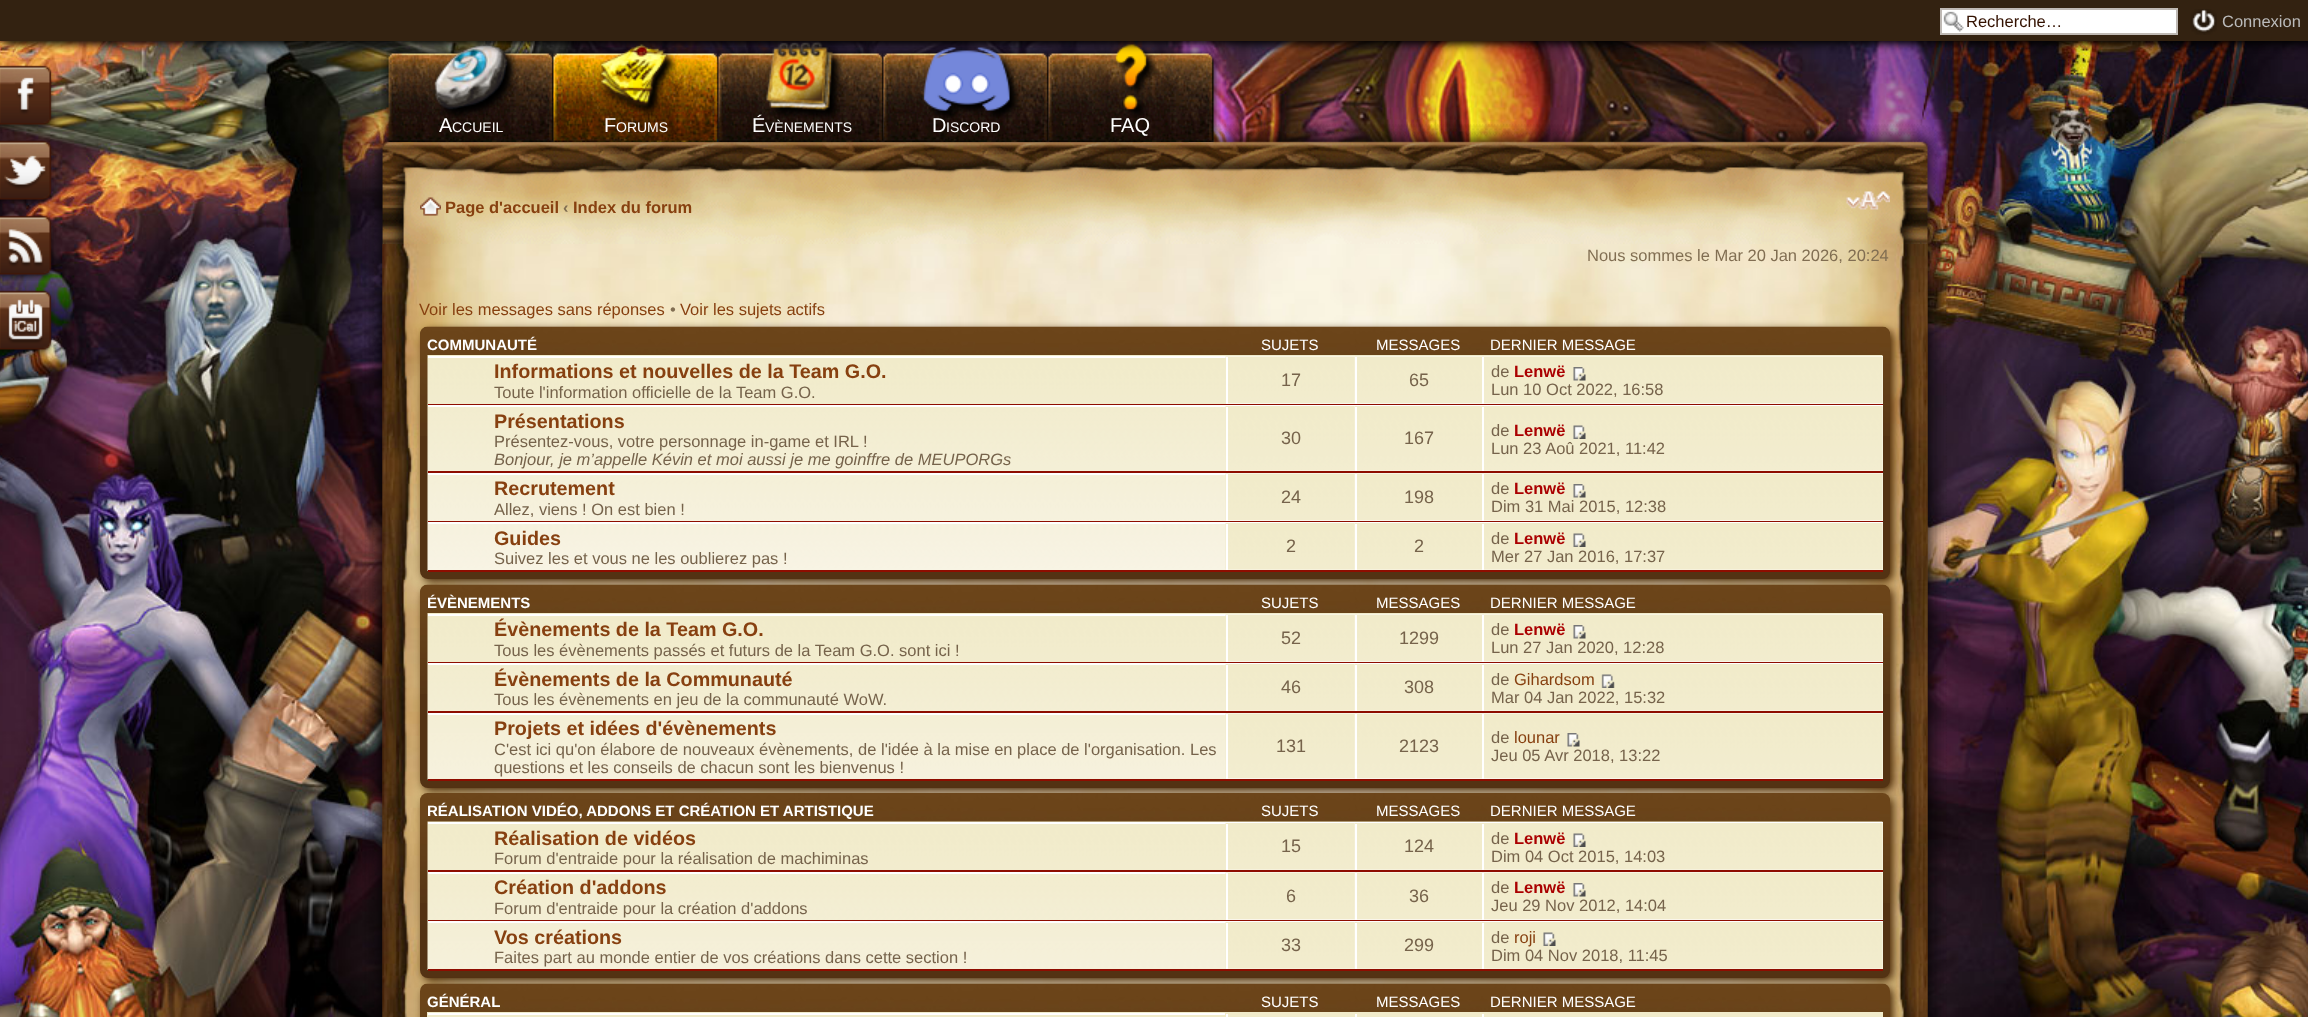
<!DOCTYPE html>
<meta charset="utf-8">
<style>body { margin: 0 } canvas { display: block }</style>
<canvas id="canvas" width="2308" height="1017"></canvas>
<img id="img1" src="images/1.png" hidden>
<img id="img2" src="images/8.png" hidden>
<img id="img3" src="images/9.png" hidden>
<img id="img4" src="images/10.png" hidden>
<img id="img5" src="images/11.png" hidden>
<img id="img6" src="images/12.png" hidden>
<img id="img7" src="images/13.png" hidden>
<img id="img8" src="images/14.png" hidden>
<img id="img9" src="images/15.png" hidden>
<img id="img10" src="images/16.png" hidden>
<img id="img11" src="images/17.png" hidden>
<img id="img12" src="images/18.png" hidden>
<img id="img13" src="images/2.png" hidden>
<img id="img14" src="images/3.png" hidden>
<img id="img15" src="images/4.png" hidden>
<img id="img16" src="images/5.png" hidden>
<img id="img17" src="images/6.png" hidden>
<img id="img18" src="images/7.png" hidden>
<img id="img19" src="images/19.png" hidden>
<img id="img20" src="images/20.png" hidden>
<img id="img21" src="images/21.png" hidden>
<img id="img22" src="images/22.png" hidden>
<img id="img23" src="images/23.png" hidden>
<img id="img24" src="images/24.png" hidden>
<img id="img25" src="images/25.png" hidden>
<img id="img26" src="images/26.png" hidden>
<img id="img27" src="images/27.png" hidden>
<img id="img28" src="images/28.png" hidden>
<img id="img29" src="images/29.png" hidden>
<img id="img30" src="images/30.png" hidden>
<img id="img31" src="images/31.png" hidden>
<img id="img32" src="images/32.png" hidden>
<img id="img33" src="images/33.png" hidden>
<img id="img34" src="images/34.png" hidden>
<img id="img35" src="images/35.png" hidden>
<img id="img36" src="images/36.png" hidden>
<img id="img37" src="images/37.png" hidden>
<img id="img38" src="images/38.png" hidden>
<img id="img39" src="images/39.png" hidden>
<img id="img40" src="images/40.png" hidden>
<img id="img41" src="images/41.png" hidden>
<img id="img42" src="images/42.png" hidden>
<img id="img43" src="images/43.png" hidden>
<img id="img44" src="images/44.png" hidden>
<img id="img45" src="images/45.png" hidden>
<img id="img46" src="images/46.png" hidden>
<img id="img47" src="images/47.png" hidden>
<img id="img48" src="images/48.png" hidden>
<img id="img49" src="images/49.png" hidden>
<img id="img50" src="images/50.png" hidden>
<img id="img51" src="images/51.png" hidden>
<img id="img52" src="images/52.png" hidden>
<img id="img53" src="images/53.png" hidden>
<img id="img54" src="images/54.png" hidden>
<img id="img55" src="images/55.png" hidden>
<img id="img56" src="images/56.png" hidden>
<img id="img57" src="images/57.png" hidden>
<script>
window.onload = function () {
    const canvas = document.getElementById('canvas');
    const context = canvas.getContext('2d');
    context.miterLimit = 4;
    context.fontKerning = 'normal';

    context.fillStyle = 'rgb(255, 255, 255)';
    context.fillRect(0, 0, 2308, 1017);
    context.drawImage(document.getElementById('img1'), 0, 41, 2308, 976);
    context.drawImage(document.getElementById('img2'), 365, 124, 1582, 120);
    context.drawImage(document.getElementById('img3'), 381, 46, 173, 96);
    context.drawImage(document.getElementById('img4'), 434, 44, 84, 74);
    context.drawImage(document.getElementById('img5'), 553, 47, 166, 95);
    context.drawImage(document.getElementById('img6'), 599, 44, 79, 72);
    context.drawImage(document.getElementById('img7'), 718, 47, 166, 95);
    context.drawImage(document.getElementById('img8'), 766, 41, 77, 78);
    context.drawImage(document.getElementById('img9'), 883, 47, 166, 95);
    context.drawImage(document.getElementById('img10'), 923, 47, 97, 73);
    context.drawImage(document.getElementById('img11'), 1048, 46, 173, 96);
    context.drawImage(document.getElementById('img12'), 1115, 44, 42, 74);
    context.fillStyle = 'rgb(0, 0, 0)';
    context.filter = 'blur(4px)';
    context.beginPath();
    context.rect(3, 3, 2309, 41);
    context.fill();
    context.filter = 'none';
    context.fillStyle = 'rgb(51, 34, 17)';
    context.fillRect(0, 0, 2308, 41);
    context.fillStyle = 'rgb(255, 255, 255)';
    context.fillRect(1942, 10, 234, 23);
    context.drawImage(document.getElementById('img13'), 1943, 11, 21, 21);
    context.strokeStyle = 'rgb(191, 185, 180)';
    context.lineWidth = 2;
    context.strokeRect(1941, 9, 236, 25);
    context.drawImage(document.getElementById('img14'), 2190, 9, 27, 26);
    context.drawImage(document.getElementById('img15'), 0, 65, 55, 66);
    context.drawImage(document.getElementById('img16'), 0, 140, 54, 67);
    context.drawImage(document.getElementById('img17'), 0, 215, 54, 66);
    context.drawImage(document.getElementById('img18'), 0, 290, 55, 67);
    context.drawImage(document.getElementById('img19'), 420, 197, 21, 19);
    context.drawImage(document.getElementById('img20'), 1846, 191, 44, 19);
    context.drawImage(document.getElementById('img21'), 364, 244, 1583, 773);
    context.drawImage(document.getElementById('img22'), 382, 244, 1546, 773);
    context.fillStyle = 'rgb(68, 34, 0)';
    context.filter = 'blur(4px)';
    context.beginPath();
    context.roundRect(423, 330, 1470, 252, 8);
    context.fill();
    context.filter = 'none';
    context.fillStyle = 'rgb(83, 50, 19)';
    context.beginPath();
    context.roundRect(420, 327, 1470, 252, 8);
    context.fill();
    context.drawImage(document.getElementById('img23'), 420, 326, 1470, 110);
    context.drawImage(document.getElementById('img24'), 427, 355, 1456, 216);
    context.fillStyle = 'rgb(255, 255, 255)';
    context.fillRect(428, 356, 1455, 2);
    context.fillStyle = 'rgb(142, 13, 0)';
    context.fillRect(428, 404, 1455, 1);
    context.fillStyle = 'rgb(250, 246, 235)';
    context.fillRect(1228, 357, 127, 47);
    context.drawImage(document.getElementById('img25'), 1225, 356, 130, 47);
    context.fillStyle = 'rgb(255, 255, 255)';
    context.fillRect(1226, 357, 2, 47);
    context.fillStyle = 'rgb(250, 246, 235)';
    context.fillRect(1357, 403, 125, 1);
    context.drawImage(document.getElementById('img26'), 1354, 356, 128, 47);
    context.fillStyle = 'rgb(255, 255, 255)';
    context.fillRect(1355, 357, 2, 47);
    context.fillStyle = 'rgb(250, 246, 235)';
    context.fillRect(1484, 357, 399, 47);
    context.drawImage(document.getElementById('img27'), 1482, 356, 401, 47);
    context.fillStyle = 'rgb(255, 255, 255)';
    context.fillRect(1482, 357, 2, 47);
    context.drawImage(document.getElementById('img28'), 1573, 367, 13, 14);
    context.fillRect(428, 405, 1455, 2);
    context.fillStyle = 'rgb(142, 13, 0)';
    context.fillRect(428, 471, 1455, 2);
    context.fillStyle = 'rgb(250, 246, 235)';
    context.fillRect(1228, 407, 127, 64);
    context.drawImage(document.getElementById('img29'), 1225, 406, 130, 65);
    context.fillStyle = 'rgb(255, 255, 255)';
    context.fillRect(1226, 407, 2, 64);
    context.fillStyle = 'rgb(250, 246, 235)';
    context.fillRect(1357, 470, 125, 1);
    context.drawImage(document.getElementById('img30'), 1354, 406, 128, 65);
    context.fillStyle = 'rgb(255, 255, 255)';
    context.fillRect(1355, 407, 2, 64);
    context.fillStyle = 'rgb(250, 246, 235)';
    context.fillRect(1484, 407, 399, 64);
    context.drawImage(document.getElementById('img31'), 1482, 406, 401, 65);
    context.fillStyle = 'rgb(255, 255, 255)';
    context.fillRect(1482, 407, 2, 64);
    context.drawImage(document.getElementById('img32'), 1573, 425, 13, 14);
    context.fillRect(428, 473, 1455, 2);
    context.fillStyle = 'rgb(142, 13, 0)';
    context.fillRect(428, 521, 1455, 1);
    context.fillStyle = 'rgb(250, 246, 235)';
    context.fillRect(1228, 474, 127, 47);
    context.drawImage(document.getElementById('img33'), 1225, 473, 130, 47);
    context.fillStyle = 'rgb(255, 255, 255)';
    context.fillRect(1226, 474, 2, 47);
    context.fillStyle = 'rgb(250, 246, 235)';
    context.fillRect(1357, 520, 125, 1);
    context.drawImage(document.getElementById('img26'), 1354, 473, 128, 47);
    context.fillStyle = 'rgb(255, 255, 255)';
    context.fillRect(1355, 474, 2, 47);
    context.fillStyle = 'rgb(250, 246, 235)';
    context.fillRect(1484, 474, 399, 47);
    context.drawImage(document.getElementById('img34'), 1482, 473, 401, 47);
    context.fillStyle = 'rgb(255, 255, 255)';
    context.fillRect(1482, 474, 2, 47);
    context.drawImage(document.getElementById('img28'), 1573, 484, 13, 14);
    context.fillRect(428, 522, 1455, 2);
    context.fillStyle = 'rgb(142, 13, 0)';
    context.fillRect(428, 570, 1455, 2);
    context.fillStyle = 'rgb(250, 246, 235)';
    context.fillRect(1228, 524, 127, 46);
    context.drawImage(document.getElementById('img35'), 1225, 523, 130, 47);
    context.fillStyle = 'rgb(255, 255, 255)';
    context.fillRect(1226, 524, 2, 46);
    context.fillStyle = 'rgb(250, 246, 235)';
    context.fillRect(1357, 569, 125, 1);
    context.drawImage(document.getElementById('img36'), 1354, 523, 128, 47);
    context.fillStyle = 'rgb(255, 255, 255)';
    context.fillRect(1355, 524, 2, 46);
    context.fillStyle = 'rgb(250, 246, 235)';
    context.fillRect(1484, 524, 399, 46);
    context.drawImage(document.getElementById('img37'), 1482, 523, 401, 47);
    context.fillStyle = 'rgb(255, 255, 255)';
    context.fillRect(1482, 524, 2, 46);
    context.drawImage(document.getElementById('img38'), 1573, 533, 13, 14);
    context.fillStyle = 'rgb(68, 34, 0)';
    context.filter = 'blur(4px)';
    context.beginPath();
    context.roundRect(423, 588, 1470, 203, 8);
    context.fill();
    context.filter = 'none';
    context.fillStyle = 'rgb(83, 50, 19)';
    context.beginPath();
    context.roundRect(420, 585, 1470, 203, 8);
    context.fill();
    context.drawImage(document.getElementById('img39'), 420, 584, 1470, 110);
    context.drawImage(document.getElementById('img40'), 427, 613, 1456, 167);
    context.fillStyle = 'rgb(255, 255, 255)';
    context.fillRect(428, 614, 1455, 2);
    context.fillStyle = 'rgb(142, 13, 0)';
    context.fillRect(428, 662, 1455, 1);
    context.fillStyle = 'rgb(250, 246, 235)';
    context.fillRect(1228, 615, 127, 47);
    context.drawImage(document.getElementById('img25'), 1225, 614, 130, 47);
    context.fillStyle = 'rgb(255, 255, 255)';
    context.fillRect(1226, 615, 2, 47);
    context.fillStyle = 'rgb(250, 246, 235)';
    context.fillRect(1357, 661, 125, 1);
    context.drawImage(document.getElementById('img26'), 1354, 614, 128, 47);
    context.fillStyle = 'rgb(255, 255, 255)';
    context.fillRect(1355, 615, 2, 47);
    context.fillStyle = 'rgb(250, 246, 235)';
    context.fillRect(1484, 615, 399, 47);
    context.drawImage(document.getElementById('img41'), 1482, 614, 401, 47);
    context.fillStyle = 'rgb(255, 255, 255)';
    context.fillRect(1482, 615, 2, 47);
    context.drawImage(document.getElementById('img28'), 1573, 625, 13, 14);
    context.fillRect(428, 663, 1455, 2);
    context.fillStyle = 'rgb(142, 13, 0)';
    context.fillRect(428, 711, 1455, 2);
    context.fillStyle = 'rgb(250, 246, 235)';
    context.fillRect(1228, 665, 127, 46);
    context.drawImage(document.getElementById('img42'), 1225, 664, 130, 47);
    context.fillStyle = 'rgb(255, 255, 255)';
    context.fillRect(1226, 665, 2, 46);
    context.fillStyle = 'rgb(250, 246, 235)';
    context.fillRect(1357, 710, 125, 1);
    context.drawImage(document.getElementById('img36'), 1354, 664, 128, 47);
    context.fillStyle = 'rgb(255, 255, 255)';
    context.fillRect(1355, 665, 2, 46);
    context.fillStyle = 'rgb(250, 246, 235)';
    context.fillRect(1484, 665, 399, 46);
    context.drawImage(document.getElementById('img43'), 1482, 664, 401, 47);
    context.fillStyle = 'rgb(255, 255, 255)';
    context.fillRect(1482, 665, 2, 46);
    context.drawImage(document.getElementById('img44'), 1601, 674, 14, 14);
    context.fillRect(428, 713, 1455, 2);
    context.fillStyle = 'rgb(142, 13, 0)';
    context.fillRect(428, 779, 1455, 2);
    context.fillStyle = 'rgb(250, 246, 235)';
    context.fillRect(1228, 714, 127, 65);
    context.drawImage(document.getElementById('img45'), 1225, 713, 130, 65);
    context.fillStyle = 'rgb(255, 255, 255)';
    context.fillRect(1226, 714, 2, 65);
    context.fillStyle = 'rgb(250, 246, 235)';
    context.fillRect(1357, 778, 125, 1);
    context.drawImage(document.getElementById('img46'), 1354, 713, 128, 65);
    context.fillStyle = 'rgb(255, 255, 255)';
    context.fillRect(1355, 714, 2, 65);
    context.fillStyle = 'rgb(250, 246, 235)';
    context.fillRect(1484, 714, 399, 65);
    context.drawImage(document.getElementById('img47'), 1482, 713, 401, 65);
    context.fillStyle = 'rgb(255, 255, 255)';
    context.fillRect(1482, 714, 2, 65);
    context.drawImage(document.getElementById('img48'), 1567, 733, 13, 14);
    context.fillStyle = 'rgb(68, 34, 0)';
    context.filter = 'blur(4px)';
    context.beginPath();
    context.roundRect(423, 797, 1470, 184, 8);
    context.fill();
    context.filter = 'none';
    context.fillStyle = 'rgb(83, 50, 19)';
    context.beginPath();
    context.roundRect(420, 794, 1470, 184, 8);
    context.fill();
    context.drawImage(document.getElementById('img49'), 420, 793, 1470, 110);
    context.drawImage(document.getElementById('img50'), 427, 821, 1456, 149);
    context.fillStyle = 'rgb(255, 255, 255)';
    context.fillRect(428, 822, 1455, 2);
    context.fillStyle = 'rgb(142, 13, 0)';
    context.fillRect(428, 870, 1455, 2);
    context.fillStyle = 'rgb(250, 246, 235)';
    context.fillRect(1228, 824, 127, 46);
    context.drawImage(document.getElementById('img51'), 1225, 823, 130, 47);
    context.fillStyle = 'rgb(255, 255, 255)';
    context.fillRect(1226, 824, 2, 46);
    context.fillStyle = 'rgb(250, 246, 235)';
    context.fillRect(1357, 869, 125, 1);
    context.drawImage(document.getElementById('img36'), 1354, 823, 128, 47);
    context.fillStyle = 'rgb(255, 255, 255)';
    context.fillRect(1355, 824, 2, 46);
    context.fillStyle = 'rgb(250, 246, 235)';
    context.fillRect(1484, 824, 399, 46);
    context.drawImage(document.getElementById('img52'), 1482, 823, 401, 47);
    context.fillStyle = 'rgb(255, 255, 255)';
    context.fillRect(1482, 824, 2, 46);
    context.drawImage(document.getElementById('img38'), 1573, 833, 13, 14);
    context.fillRect(428, 872, 1455, 2);
    context.fillStyle = 'rgb(142, 13, 0)';
    context.fillRect(428, 920, 1455, 1);
    context.fillStyle = 'rgb(250, 246, 235)';
    context.fillRect(1228, 873, 127, 47);
    context.drawImage(document.getElementById('img53'), 1225, 872, 130, 47);
    context.fillStyle = 'rgb(255, 255, 255)';
    context.fillRect(1226, 873, 2, 47);
    context.fillStyle = 'rgb(250, 246, 235)';
    context.fillRect(1357, 919, 125, 1);
    context.drawImage(document.getElementById('img26'), 1354, 872, 128, 47);
    context.fillStyle = 'rgb(255, 255, 255)';
    context.fillRect(1355, 873, 2, 47);
    context.fillStyle = 'rgb(250, 246, 235)';
    context.fillRect(1484, 873, 399, 47);
    context.drawImage(document.getElementById('img54'), 1482, 872, 401, 47);
    context.fillStyle = 'rgb(255, 255, 255)';
    context.fillRect(1482, 873, 2, 47);
    context.drawImage(document.getElementById('img28'), 1573, 883, 13, 14);
    context.fillRect(428, 921, 1455, 2);
    context.fillStyle = 'rgb(142, 13, 0)';
    context.fillRect(428, 969, 1455, 2);
    context.fillStyle = 'rgb(250, 246, 235)';
    context.fillRect(1228, 923, 127, 46);
    context.drawImage(document.getElementById('img55'), 1225, 922, 130, 47);
    context.fillStyle = 'rgb(255, 255, 255)';
    context.fillRect(1226, 923, 2, 46);
    context.fillStyle = 'rgb(250, 246, 235)';
    context.fillRect(1357, 968, 125, 1);
    context.drawImage(document.getElementById('img36'), 1354, 922, 128, 47);
    context.fillStyle = 'rgb(255, 255, 255)';
    context.fillRect(1355, 923, 2, 46);
    context.fillStyle = 'rgb(250, 246, 235)';
    context.fillRect(1484, 923, 399, 46);
    context.drawImage(document.getElementById('img56'), 1482, 922, 401, 47);
    context.fillStyle = 'rgb(255, 255, 255)';
    context.fillRect(1482, 923, 2, 46);
    context.drawImage(document.getElementById('img38'), 1543, 932, 13, 14);
    context.fillStyle = 'rgb(68, 34, 0)';
    context.filter = 'blur(4px)';
    context.beginPath();
    context.roundRect(423, 987, 1470, 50, 8);
    context.fill();
    context.filter = 'none';
    context.drawImage(document.getElementById('img57'), 420, 983, 1470, 34);
    context.fillStyle = 'rgb(241, 235, 202)';
    context.fillRect(427, 1012, 1456, 5);
    context.fillStyle = 'rgb(255, 255, 255)';
    context.fillRect(428, 1013, 797, 2);
    context.fillRect(1226, 1014, 2, 3);
    context.fillRect(1355, 1014, 2, 3);
    context.fillRect(1482, 1014, 2, 3);
    context.font = '16.5px Liberation Sans';
    context.fillStyle = 'rgb(51, 17, 0)';
    context.fillText('Recherche…', 1966, 27);
    context.fillStyle = 'rgb(187, 187, 187)';
    context.fillText('Connexion', 2222, 27);
    context.font = '20px Liberation Sans';
    context.fillStyle = 'rgb(255, 255, 255)';
    context.fillText('A', 439, 132);
    context.font = '14px Liberation Sans';
    context.fillText('CCUEIL', 452, 132);
    context.font = '20px Liberation Sans';
    context.fillText('F', 604, 132);
    context.font = '14px Liberation Sans';
    context.fillText('ORUMS', 616, 132);
    context.font = '20px Liberation Sans';
    context.fillText('É', 752, 132);
    context.font = '14px Liberation Sans';
    context.fillText('VÈNEMENTS', 765, 132);
    context.font = '20px Liberation Sans';
    context.fillText('D', 932, 132);
    context.font = '14px Liberation Sans';
    context.fillText('ISCORD', 946, 132);
    context.font = '20px Liberation Sans';
    context.fillText('FAQ', 1110, 132);
    context.font = 'bold 16.5px Liberation Sans';
    context.fillStyle = 'rgb(135, 64, 16)';
    context.fillText('Page d\'accueil', 445, 213);
    context.fillStyle = 'rgb(129, 110, 82)';
    context.fillText('‹', 563, 213);
    context.fillStyle = 'rgb(135, 64, 16)';
    context.fillText('Index du forum', 573, 213);
    context.font = '16.5px Liberation Sans';
    context.fillStyle = 'rgb(129, 110, 82)';
    context.fillText('Nous sommes le Mar 20 Jan 2026, 20:24', 1587, 261);
    context.fillStyle = 'rgb(135, 64, 16)';
    context.fillText('Voir les messages sans réponses', 419, 315);
    context.fillStyle = 'rgb(129, 110, 82)';
    context.fillText('•', 670, 315);
    context.fillStyle = 'rgb(135, 64, 16)';
    context.fillText('Voir les sujets actifs', 680, 315);
    context.font = 'bold 15px Liberation Sans';
    context.fillStyle = 'rgb(255, 255, 255)';
    context.fillText('COMMUNAUTÉ', 427, 350);
    context.font = '15px Liberation Sans';
    context.fillText('SUJETS', 1261, 350);
    context.fillText('MESSAGES', 1376, 350);
    context.fillText('DERNIER MESSAGE', 1490, 350);
    context.font = 'bold 19.75px Liberation Sans';
    context.fillStyle = 'rgb(135, 64, 16)';
    context.fillText('Informations et nouvelles de la Team G.O.', 494, 378);
    context.font = '16.5px Liberation Sans';
    context.fillStyle = 'rgb(118, 99, 75)';
    context.fillText('Toute l\'information officielle de la Team G.O.', 494, 398);
    context.font = '18px Liberation Sans';
    context.fillText('17', 1281, 386);
    context.fillText('65', 1409, 386);
    context.font = '16.5px Liberation Sans';
    context.fillText('de', 1491, 377);
    context.font = 'bold 16.5px Liberation Sans';
    context.fillStyle = 'rgb(170, 0, 0)';
    context.fillText('Lenwë', 1514, 377);
    context.font = '16.5px Liberation Sans';
    context.fillStyle = 'rgb(118, 99, 75)';
    context.fillText('Lun 10 Oct 2022, 16:58', 1491, 395);
    context.font = 'bold 19.75px Liberation Sans';
    context.fillStyle = 'rgb(135, 64, 16)';
    context.fillText('Présentations', 494, 428);
    context.font = '16.5px Liberation Sans';
    context.fillStyle = 'rgb(118, 99, 75)';
    context.fillText('Présentez-vous, votre personnage in-game et IRL !', 494, 447);
    context.font = 'italic 16.5px Liberation Sans';
    context.fillText('Bonjour, je m’appelle Kévin et moi aussi je me goinffre de MEUPORGs', 494, 465);
    context.font = '18px Liberation Sans';
    context.fillText('30', 1281, 444);
    context.fillText('167', 1404, 444);
    context.font = '16.5px Liberation Sans';
    context.fillText('de', 1491, 436);
    context.font = 'bold 16.5px Liberation Sans';
    context.fillStyle = 'rgb(170, 0, 0)';
    context.fillText('Lenwë', 1514, 436);
    context.font = '16.5px Liberation Sans';
    context.fillStyle = 'rgb(118, 99, 75)';
    context.fillText('Lun 23 Aoû 2021, 11:42', 1491, 454);
    context.font = 'bold 19.75px Liberation Sans';
    context.fillStyle = 'rgb(135, 64, 16)';
    context.fillText('Recrutement', 494, 495);
    context.font = '16.5px Liberation Sans';
    context.fillStyle = 'rgb(118, 99, 75)';
    context.fillText('Allez, viens ! On est bien !', 494, 515);
    context.font = '18px Liberation Sans';
    context.fillText('24', 1281, 503);
    context.fillText('198', 1404, 503);
    context.font = '16.5px Liberation Sans';
    context.fillText('de', 1491, 494);
    context.font = 'bold 16.5px Liberation Sans';
    context.fillStyle = 'rgb(170, 0, 0)';
    context.fillText('Lenwë', 1514, 494);
    context.font = '16.5px Liberation Sans';
    context.fillStyle = 'rgb(118, 99, 75)';
    context.fillText('Dim 31 Mai 2015, 12:38', 1491, 512);
    context.font = 'bold 19.75px Liberation Sans';
    context.fillStyle = 'rgb(135, 64, 16)';
    context.fillText('Guides', 494, 545);
    context.font = '16.5px Liberation Sans';
    context.fillStyle = 'rgb(118, 99, 75)';
    context.fillText('Suivez les et vous ne les oublierez pas !', 494, 564);
    context.font = '18px Liberation Sans';
    context.fillText('2', 1286, 552);
    context.fillText('2', 1414, 552);
    context.font = '16.5px Liberation Sans';
    context.fillText('de', 1491, 544);
    context.font = 'bold 16.5px Liberation Sans';
    context.fillStyle = 'rgb(170, 0, 0)';
    context.fillText('Lenwë', 1514, 544);
    context.font = '16.5px Liberation Sans';
    context.fillStyle = 'rgb(118, 99, 75)';
    context.fillText('Mer 27 Jan 2016, 17:37', 1491, 562);
    context.font = 'bold 15px Liberation Sans';
    context.fillStyle = 'rgb(255, 255, 255)';
    context.fillText('ÉVÈNEMENTS', 427, 608);
    context.font = '15px Liberation Sans';
    context.fillText('SUJETS', 1261, 608);
    context.fillText('MESSAGES', 1376, 608);
    context.fillText('DERNIER MESSAGE', 1490, 608);
    context.font = 'bold 19.75px Liberation Sans';
    context.fillStyle = 'rgb(135, 64, 16)';
    context.fillText('Évènements de la Team G.O.', 494, 636);
    context.font = '16.5px Liberation Sans';
    context.fillStyle = 'rgb(118, 99, 75)';
    context.fillText('Tous les évènements passés et futurs de la Team G.O. sont ici !', 494, 656);
    context.font = '18px Liberation Sans';
    context.fillText('52', 1281, 644);
    context.fillText('1299', 1399, 644);
    context.font = '16.5px Liberation Sans';
    context.fillText('de', 1491, 635);
    context.font = 'bold 16.5px Liberation Sans';
    context.fillStyle = 'rgb(170, 0, 0)';
    context.fillText('Lenwë', 1514, 635);
    context.font = '16.5px Liberation Sans';
    context.fillStyle = 'rgb(118, 99, 75)';
    context.fillText('Lun 27 Jan 2020, 12:28', 1491, 653);
    context.font = 'bold 19.75px Liberation Sans';
    context.fillStyle = 'rgb(135, 64, 16)';
    context.fillText('Évènements de la Communauté', 494, 686);
    context.font = '16.5px Liberation Sans';
    context.fillStyle = 'rgb(118, 99, 75)';
    context.fillText('Tous les évènements en jeu de la communauté WoW.', 494, 705);
    context.font = '18px Liberation Sans';
    context.fillText('46', 1281, 693);
    context.fillText('308', 1404, 693);
    context.font = '16.5px Liberation Sans';
    context.fillText('de', 1491, 685);
    context.fillStyle = 'rgb(135, 64, 16)';
    context.fillText('Gihardsom', 1514, 685);
    context.fillStyle = 'rgb(118, 99, 75)';
    context.fillText('Mar 04 Jan 2022, 15:32', 1491, 703);
    context.font = 'bold 19.75px Liberation Sans';
    context.fillStyle = 'rgb(135, 64, 16)';
    context.fillText('Projets et idées d\'évènements', 494, 735);
    context.font = '16.5px Liberation Sans';
    context.fillStyle = 'rgb(118, 99, 75)';
    context.fillText('C\'est ici qu\'on élabore de nouveaux évènements, de l\'idée à la mise en place de l\'organisation. Les', 494, 755);
    context.fillText('questions et les conseils de chacun sont les bienvenus !', 494, 773);
    context.font = '18px Liberation Sans';
    context.fillText('131', 1276, 752);
    context.fillText('2123', 1399, 752);
    context.font = '16.5px Liberation Sans';
    context.fillText('de', 1491, 743);
    context.fillStyle = 'rgb(135, 64, 16)';
    context.fillText('lounar', 1514, 743);
    context.fillStyle = 'rgb(118, 99, 75)';
    context.fillText('Jeu 05 Avr 2018, 13:22', 1491, 761);
    context.font = 'bold 15px Liberation Sans';
    context.fillStyle = 'rgb(255, 255, 255)';
    context.fillText('RÉALISATION VIDÉO, ADDONS ET CRÉATION ET ARTISTIQUE', 427, 816);
    context.font = '15px Liberation Sans';
    context.fillText('SUJETS', 1261, 816);
    context.fillText('MESSAGES', 1376, 816);
    context.fillText('DERNIER MESSAGE', 1490, 816);
    context.font = 'bold 19.75px Liberation Sans';
    context.fillStyle = 'rgb(135, 64, 16)';
    context.fillText('Réalisation de vidéos', 494, 845);
    context.font = '16.5px Liberation Sans';
    context.fillStyle = 'rgb(118, 99, 75)';
    context.fillText('Forum d\'entraide pour la réalisation de machiminas', 494, 864);
    context.font = '18px Liberation Sans';
    context.fillText('15', 1281, 852);
    context.fillText('124', 1404, 852);
    context.font = '16.5px Liberation Sans';
    context.fillText('de', 1491, 844);
    context.font = 'bold 16.5px Liberation Sans';
    context.fillStyle = 'rgb(170, 0, 0)';
    context.fillText('Lenwë', 1514, 844);
    context.font = '16.5px Liberation Sans';
    context.fillStyle = 'rgb(118, 99, 75)';
    context.fillText('Dim 04 Oct 2015, 14:03', 1491, 862);
    context.font = 'bold 19.75px Liberation Sans';
    context.fillStyle = 'rgb(135, 64, 16)';
    context.fillText('Création d\'addons', 494, 894);
    context.font = '16.5px Liberation Sans';
    context.fillStyle = 'rgb(118, 99, 75)';
    context.fillText('Forum d\'entraide pour la création d\'addons', 494, 914);
    context.font = '18px Liberation Sans';
    context.fillText('6', 1286, 902);
    context.fillText('36', 1409, 902);
    context.font = '16.5px Liberation Sans';
    context.fillText('de', 1491, 893);
    context.font = 'bold 16.5px Liberation Sans';
    context.fillStyle = 'rgb(170, 0, 0)';
    context.fillText('Lenwë', 1514, 893);
    context.font = '16.5px Liberation Sans';
    context.fillStyle = 'rgb(118, 99, 75)';
    context.fillText('Jeu 29 Nov 2012, 14:04', 1491, 911);
    context.font = 'bold 19.75px Liberation Sans';
    context.fillStyle = 'rgb(135, 64, 16)';
    context.fillText('Vos créations', 494, 944);
    context.font = '16.5px Liberation Sans';
    context.fillStyle = 'rgb(118, 99, 75)';
    context.fillText('Faites part au monde entier de vos créations dans cette section !', 494, 963);
    context.font = '18px Liberation Sans';
    context.fillText('33', 1281, 951);
    context.fillText('299', 1404, 951);
    context.font = '16.5px Liberation Sans';
    context.fillText('de', 1491, 943);
    context.fillStyle = 'rgb(135, 64, 16)';
    context.fillText('roji', 1514, 943);
    context.fillStyle = 'rgb(118, 99, 75)';
    context.fillText('Dim 04 Nov 2018, 11:45', 1491, 961);
    context.font = 'bold 15px Liberation Sans';
    context.fillStyle = 'rgb(255, 255, 255)';
    context.fillText('GÉNÉRAL', 427, 1007);
    context.font = '15px Liberation Sans';
    context.fillText('SUJETS', 1261, 1007);
    context.fillText('MESSAGES', 1376, 1007);
    context.fillText('DERNIER MESSAGE', 1490, 1007);
};
</script>
